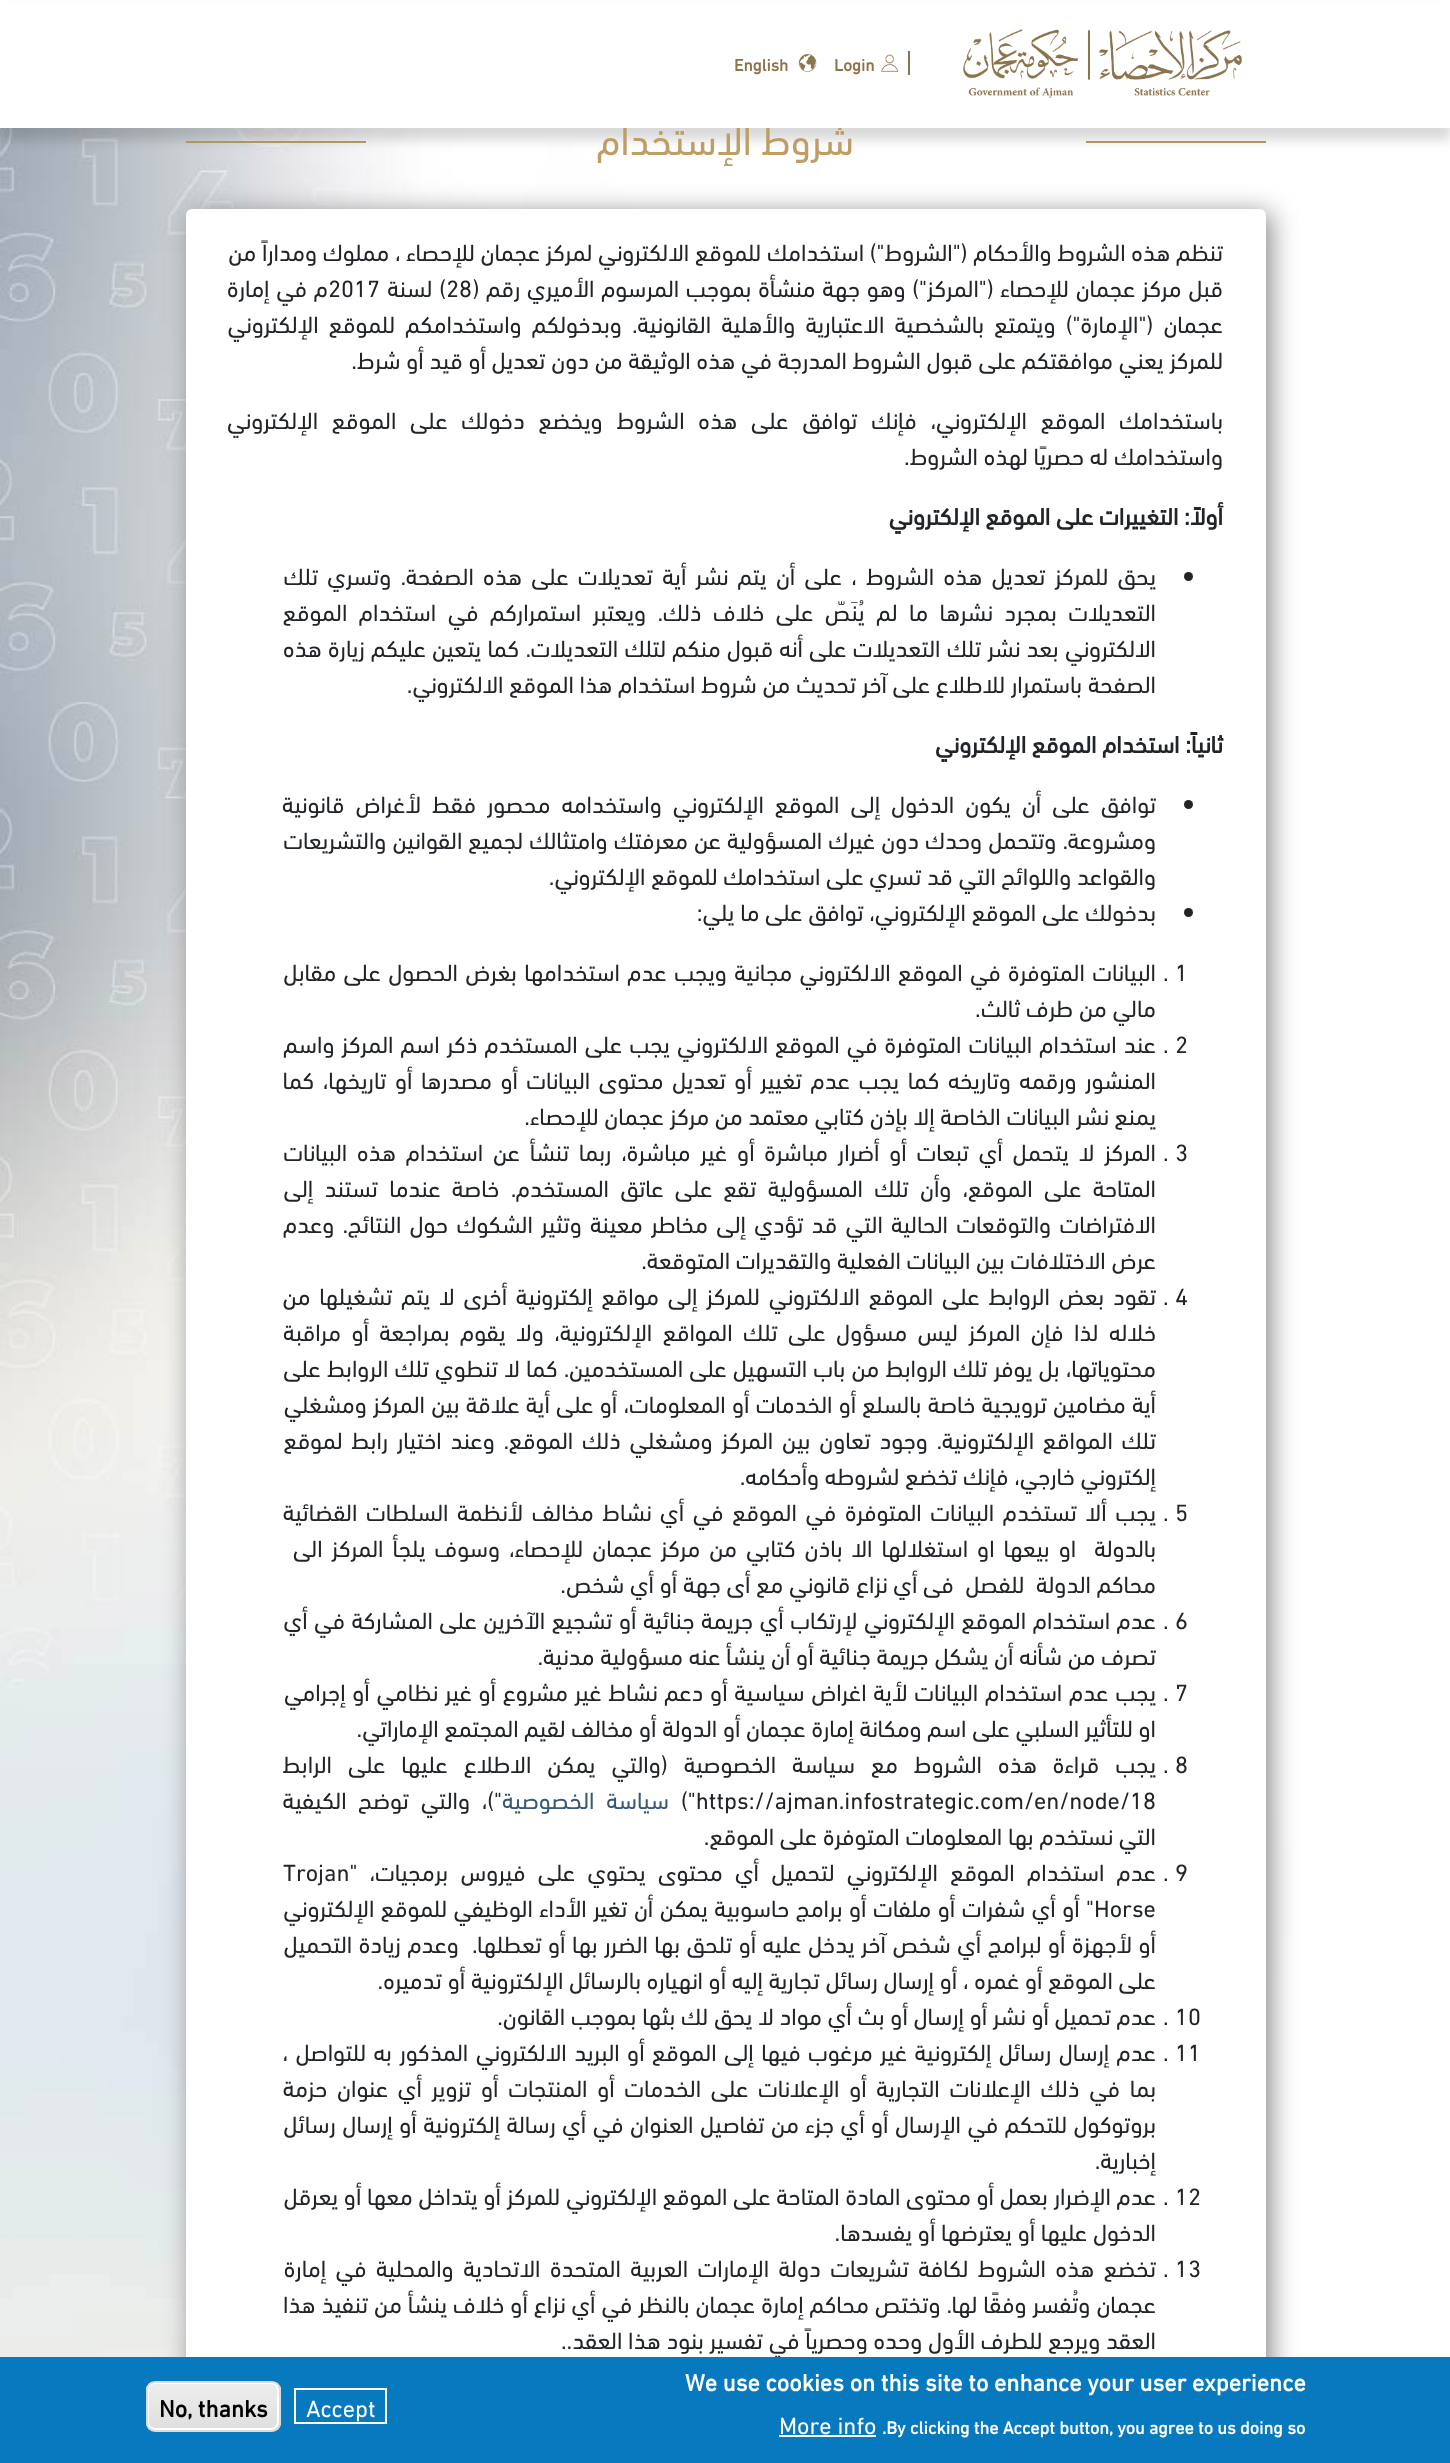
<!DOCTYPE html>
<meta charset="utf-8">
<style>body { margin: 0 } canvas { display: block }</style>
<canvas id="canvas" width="1450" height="2463"></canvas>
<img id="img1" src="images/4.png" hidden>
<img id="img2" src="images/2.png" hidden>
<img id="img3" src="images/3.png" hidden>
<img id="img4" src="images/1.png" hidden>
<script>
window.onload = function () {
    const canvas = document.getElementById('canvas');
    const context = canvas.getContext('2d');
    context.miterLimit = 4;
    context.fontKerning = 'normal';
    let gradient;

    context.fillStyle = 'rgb(255, 255, 255)';
    context.fillRect(0, 0, 1450, 2463);
    context.drawImage(document.getElementById('img1'), 0, 128, 1450, 2229);
    context.fillStyle = 'rgb(191, 158, 102)';
    context.fillRect(1086, 141, 180, 2);
    context.fillRect(186, 141, 180, 2);
    context.fillStyle = 'rgba(0, 0, 0, 0.15)';
    context.filter = 'blur(6px)';
    context.beginPath();
    context.rect(0, 12, 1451, 128);
    context.fill();
    context.filter = 'none';
    context.fillStyle = 'rgb(136, 136, 136)';
    context.filter = 'blur(13.5px)';
    context.beginPath();
    context.roundRect(191, 213, 1080, 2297, 6);
    context.fill();
    context.filter = 'none';
    context.fillStyle = 'rgb(255, 255, 255)';
    context.beginPath();
    context.roundRect(186, 209, 1080, 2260, 6);
    context.fill();
    context.fillStyle = 'rgb(33, 37, 41)';
    context.beginPath();
    context.arc(1188.5, 576.5, 4.5, 0, 2 * Math.PI);
    context.fill();
    context.beginPath();
    context.arc(1188.5, 804.5, 4.5, 0, 2 * Math.PI);
    context.fill();
    context.beginPath();
    context.arc(1188.5, 912.5, 4.5, 0, 2 * Math.PI);
    context.fill();
    context.direction = 'rtl';
    context.font = '40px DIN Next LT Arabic';
    context.fillStyle = 'rgb(191, 158, 102)';
    context.fillText('شروط الإستخدام', 854, 155);
    context.fillStyle = 'rgb(255, 255, 255)';
    context.fillRect(0, 3, 1450, 125);
    context.direction = 'ltr';
    context.font = 'bold 17px DIN Next LT Arabic';
    context.fillStyle = 'rgb(140, 115, 74)';
    context.fillText('Login', 834, 71);
    context.fillRect(908, 51, 2, 24);
    context.drawImage(document.getElementById('img2'), 881, 54, 18, 18);
    context.fillText('English', 734, 71);
    context.drawImage(document.getElementById('img3'), 798, 53, 19, 20);
    context.drawImage(document.getElementById('img4'), 963, 29, 279, 69);
    context.direction = 'rtl';
    context.font = '24px DIN Next LT Arabic';
    context.fillStyle = 'rgb(33, 37, 41)';
    context.fillText('تنظم هذه الشروط والأحكام ("الشروط") استخدامك للموقع الالكتروني لمركز عجمان للإحصاء ، مملوك ومداراً من', 1223, 261);
    context.wordSpacing = '1px';
    context.fillText('قبل مركز عجمان للإحصاء ("المركز") وهو جهة منشأة بموجب المرسوم الأميري رقم (', 1223, 297);
    context.wordSpacing = '0px';
    context.direction = 'ltr';
    context.fillText('28', 446, 297);
    context.wordSpacing = '1px';
    context.direction = 'rtl';
    context.fillText(') لسنة', 446, 297);
    context.wordSpacing = '0px';
    context.direction = 'ltr';
    context.fillText('2017', 328, 297);
    context.wordSpacing = '1px';
    context.direction = 'rtl';
    context.fillText('م في إمارة', 328, 297);
    context.wordSpacing = '4.5px';
    context.fillText('عجمان ("الإمارة") ويتمتع بالشخصية الاعتبارية والأهلية القانونية. وبدخولكم واستخدامكم للموقع الإلكتروني', 1223, 333);
    context.wordSpacing = '0px';
    context.fillText('للمركز يعني موافقتكم على قبول الشروط المدرجة في هذه الوثيقة من دون تعديل أو قيد أو شرط.', 1223, 369);
    context.wordSpacing = '8px';
    context.fillText('باستخدامك الموقع الإلكتروني، فإنك توافق على هذه الشروط ويخضع دخولك على الموقع الإلكتروني', 1223, 429);
    context.wordSpacing = '0px';
    context.fillText('واستخدامك له حصريًا لهذه الشروط.', 1223, 465);
    context.font = 'bold 24px DIN Next LT Arabic';
    context.fillText('أولاً: التغييرات على الموقع الإلكتروني', 1223, 525);
    context.wordSpacing = '3.5px';
    context.font = '24px DIN Next LT Arabic';
    context.fillText('يحق للمركز تعديل هذه الشروط ، على أن يتم نشر أية تعديلات على هذه الصفحة. وتسري تلك', 1156, 585);
    context.wordSpacing = '5.75px';
    context.fillText('التعديلات بمجرد نشرها ما لم يُنَصّ على خلاف ذلك. ويعتبر استمراركم في استخدام الموقع', 1156, 621);
    context.wordSpacing = '0.5px';
    context.fillText('الالكتروني بعد نشر تلك التعديلات على أنه قبول منكم لتلك التعديلات. كما يتعين عليكم زيارة هذه', 1156, 657);
    context.wordSpacing = '0px';
    context.fillText('الصفحة باستمرار للاطلاع على آخر تحديث من شروط استخدام هذا الموقع الالكتروني.', 1156, 693);
    context.font = 'bold 24px DIN Next LT Arabic';
    context.fillText('ثانياً: استخدام الموقع الإلكتروني', 1223, 753);
    context.wordSpacing = '5.25px';
    context.font = '24px DIN Next LT Arabic';
    context.fillText('توافق على أن يكون الدخول إلى الموقع الإلكتروني واستخدامه محصور فقط لأغراض قانونية', 1156, 813);
    context.wordSpacing = '0.25px';
    context.fillText('ومشروعة. وتتحمل وحدك دون غيرك المسؤولية عن معرفتك وامتثالك لجميع القوانين والتشريعات', 1156, 849);
    context.wordSpacing = '0px';
    context.fillText('والقواعد واللوائح التي قد تسري على استخدامك للموقع الإلكتروني.', 1156, 885);
    context.fillText('بدخولك على الموقع الإلكتروني، توافق على ما يلي:', 1156, 921);
    context.direction = 'ltr';
    context.fillText('1', 1175, 981);
    context.fillText('.', 1163, 981);
    context.wordSpacing = '1.6px';
    context.direction = 'rtl';
    context.fillText('البيانات المتوفرة في الموقع الالكتروني مجانية ويجب عدم استخدامها بغرض الحصول على مقابل', 1156, 981);
    context.wordSpacing = '0px';
    context.fillText('مالي من طرف ثالث.', 1156, 1017);
    context.direction = 'ltr';
    context.fillText('2', 1175, 1053);
    context.fillText('.', 1163, 1053);
    context.wordSpacing = '1.3px';
    context.direction = 'rtl';
    context.fillText('عند استخدام البيانات المتوفرة في الموقع الالكتروني يجب على المستخدم ذكر اسم المركز واسم', 1156, 1053);
    context.wordSpacing = '2.75px';
    context.fillText('المنشور ورقمه وتاريخه كما يجب عدم تغيير أو تعديل محتوى البيانات أو مصدرها أو تاريخها، كما', 1156, 1089);
    context.wordSpacing = '0px';
    context.fillText('يمنع نشر البيانات الخاصة إلا بإذن كتابي معتمد من مركز عجمان للإحصاء.', 1156, 1125);
    context.direction = 'ltr';
    context.fillText('3', 1175, 1161);
    context.fillText('.', 1163, 1161);
    context.wordSpacing = '4.1px';
    context.direction = 'rtl';
    context.fillText('المركز لا يتحمل أي تبعات أو أضرار مباشرة أو غير مباشرة، ربما تنشأ عن استخدام هذه البيانات', 1156, 1161);
    context.wordSpacing = '5.5px';
    context.fillText('المتاحة على الموقع، وأن تلك المسؤولية تقع على عاتق المستخدم. خاصة عندما تستند إلى', 1156, 1197);
    context.wordSpacing = '2.5px';
    context.fillText('الافتراضات والتوقعات الحالية التي قد تؤدي إلى مخاطر معينة وتثير الشكوك حول النتائج. وعدم', 1156, 1233);
    context.wordSpacing = '0px';
    context.fillText('عرض الاختلافات بين البيانات الفعلية والتقديرات المتوقعة.', 1156, 1269);
    context.direction = 'ltr';
    context.fillText('4', 1175, 1305);
    context.fillText('.', 1163, 1305);
    context.wordSpacing = '3.1px';
    context.direction = 'rtl';
    context.fillText('تقود بعض الروابط على الموقع الالكتروني للمركز إلى مواقع إلكترونية أخرى لا يتم تشغيلها من', 1156, 1305);
    context.wordSpacing = '4.75px';
    context.fillText('خلاله لذا فإن المركز ليس مسؤول على تلك المواقع الإلكترونية، ولا يقوم بمراجعة أو مراقبة', 1156, 1341);
    context.wordSpacing = '0.4px';
    context.fillText('محتوياتها، بل يوفر تلك الروابط من باب التسهيل على المستخدمين. كما لا تنطوي تلك الروابط على', 1156, 1377);
    context.wordSpacing = '0.5px';
    context.fillText('أية مضامين ترويجية خاصة بالسلع أو الخدمات أو المعلومات، أو على أية علاقة بين المركز ومشغلي', 1156, 1413);
    context.wordSpacing = '3px';
    context.fillText('تلك المواقع الإلكترونية. وجود تعاون بين المركز ومشغلي ذلك الموقع. وعند اختيار رابط لموقع', 1156, 1449);
    context.wordSpacing = '0px';
    context.fillText('إلكتروني خارجي، فإنك تخضع لشروطه وأحكامه.', 1156, 1485);
    context.direction = 'ltr';
    context.fillText('5', 1175, 1521);
    context.fillText('.', 1163, 1521);
    context.wordSpacing = '2.9px';
    context.direction = 'rtl';
    context.fillText('يجب ألا تستخدم البيانات المتوفرة في الموقع في أي نشاط مخالف لأنظمة السلطات القضائية', 1156, 1521);
    context.wordSpacing = '3.25px';
    context.fillText('بالدولة  او بيعها او استغلالها الا باذن كتابي من مركز عجمان للإحصاء، وسوف يلجأ المركز الى', 1156, 1557);
    context.wordSpacing = '0px';
    context.fillText('محاكم الدولة  للفصل  فى أي نزاع قانوني مع أى جهة أو أي شخص.', 1156, 1593);
    context.direction = 'ltr';
    context.fillText('6', 1175, 1629);
    context.fillText('.', 1163, 1629);
    context.wordSpacing = '0.8px';
    context.direction = 'rtl';
    context.fillText('عدم استخدام الموقع الإلكتروني لإرتكاب أي جريمة جنائية أو تشجيع الآخرين على المشاركة في أي', 1156, 1629);
    context.wordSpacing = '0px';
    context.fillText('تصرف من شأنه أن يشكل جريمة جنائية أو أن ينشأ عنه مسؤولية مدنية.', 1156, 1665);
    context.direction = 'ltr';
    context.fillText('7', 1175, 1701);
    context.fillText('.', 1163, 1701);
    context.wordSpacing = '1px';
    context.direction = 'rtl';
    context.fillText('يجب عدم استخدام البيانات لأية اغراض سياسية أو دعم نشاط غير مشروع أو غير نظامي أو إجرامي', 1156, 1701);
    context.wordSpacing = '0px';
    context.fillText('او للتأثير السلبي على اسم ومكانة إمارة عجمان أو الدولة أو مخالف لقيم المجتمع الإماراتي.', 1156, 1737);
    context.direction = 'ltr';
    context.fillText('8', 1175, 1773);
    context.fillText('.', 1163, 1773);
    context.wordSpacing = '10.25px';
    context.direction = 'rtl';
    context.fillText('يجب قراءة هذه الشروط مع سياسة الخصوصية (والتي يمكن الاطلاع عليها على الرابط', 1156, 1773);
    context.wordSpacing = '0px';
    context.direction = 'ltr';
    context.fillText('("https://ajman.infostrategic.com/en/node/18', 681, 1809);
    context.wordSpacing = '6px';
    context.direction = 'rtl';
    context.fillStyle = 'rgb(57, 88, 117)';
    context.fillText('سياسة الخصوصية', 669, 1809);
    context.fillStyle = 'rgb(33, 37, 41)';
    context.fillText('")، والتي توضح الكيفية', 502, 1809);
    context.wordSpacing = '0px';
    context.fillText('التي نستخدم بها المعلومات المتوفرة على الموقع.', 1156, 1845);
    context.direction = 'ltr';
    context.fillText('9', 1175, 1881);
    context.fillText('.', 1163, 1881);
    context.wordSpacing = '6.5px';
    context.direction = 'rtl';
    context.fillText('عدم استخدام الموقع الإلكتروني لتحميل أي محتوى يحتوي على فيروس برمجيات، "', 1156, 1881);
    context.wordSpacing = '0px';
    context.direction = 'ltr';
    context.fillText('Trojan', 283, 1881);
    context.fillText('Horse', 1094, 1917);
    context.wordSpacing = '0.75px';
    context.direction = 'rtl';
    context.fillText('" أو أي شفرات أو ملفات أو برامج حاسوبية يمكن أن تغير الأداء الوظيفي للموقع الإلكتروني', 1094, 1917);
    context.fillText('أو لأجهزة أو لبرامج أي شخص آخر يدخل عليه أو تلحق بها الضرر بها أو تعطلها.  وعدم زيادة التحميل', 1156, 1953);
    context.wordSpacing = '0px';
    context.fillText('على الموقع أو غمره ، أو إرسال رسائل تجارية إليه أو انهياره بالرسائل الإلكترونية أو تدميره.', 1156, 1989);
    context.direction = 'ltr';
    context.fillText('10', 1175, 2025);
    context.fillText('.', 1163, 2025);
    context.direction = 'rtl';
    context.fillText('عدم تحميل أو نشر أو إرسال أو بث أي مواد لا يحق لك بثها بموجب القانون.', 1156, 2025);
    context.direction = 'ltr';
    context.fillText('11', 1175, 2061);
    context.fillText('.', 1163, 2061);
    context.wordSpacing = '1.7px';
    context.direction = 'rtl';
    context.fillText('عدم إرسال رسائل إلكترونية غير مرغوب فيها إلى الموقع أو البريد الالكتروني المذكور به للتواصل ،', 1156, 2061);
    context.wordSpacing = '4px';
    context.fillText('بما في ذلك الإعلانات التجارية أو الإعلانات على الخدمات أو المنتجات أو تزوير أي عنوان حزمة', 1156, 2097);
    context.wordSpacing = '0.75px';
    context.fillText('بروتوكول للتحكم في الإرسال أو أي جزء من تفاصيل العنوان في أي رسالة إلكترونية أو إرسال رسائل', 1156, 2133);
    context.wordSpacing = '0px';
    context.fillText('إخبارية.', 1156, 2169);
    context.direction = 'ltr';
    context.fillText('12', 1175, 2205);
    context.fillText('.', 1163, 2205);
    context.direction = 'rtl';
    context.fillText('عدم الإضرار بعمل أو محتوى المادة المتاحة على الموقع الإلكتروني للمركز أو يتداخل معها أو يعرقل', 1156, 2205);
    context.fillText('الدخول عليها أو يعترضها أو يفسدها.', 1156, 2241);
    context.direction = 'ltr';
    context.fillText('13', 1175, 2277);
    context.fillText('.', 1163, 2277);
    context.wordSpacing = '3.75px';
    context.direction = 'rtl';
    context.fillText('تخضع هذه الشروط لكافة تشريعات دولة الإمارات العربية المتحدة الاتحادية والمحلية في إمارة', 1156, 2277);
    context.wordSpacing = '0.25px';
    context.fillText('عجمان وتُفسر وفقًا لها. وتختص محاكم إمارة عجمان بالنظر في أي نزاع أو خلاف ينشأ من تنفيذ هذا', 1156, 2313);
    context.wordSpacing = '0px';
    context.fillText('العقد ويرجع للطرف الأول وحده وحصرياً في تفسير بنود هذا العقد..', 1156, 2349);
    context.fillStyle = 'rgb(7, 121, 191)';
    context.fillRect(0, 2357, 1450, 106);
    context.direction = 'ltr';
    context.font = 'bold 24px DIN Next LT Arabic';
    context.fillStyle = 'rgb(255, 255, 255)';
    context.fillText('We use cookies on this site to enhance your user experience', 685, 2391);
    context.font = 'bold 18px DIN Next LT Arabic';
    context.fillText('.By clicking the Accept button, you agree to us doing so', 882, 2434);
    context.font = '24px DIN Next LT Arabic';
    context.fillText('More info', 779, 2434);
    context.fillRect(779, 2435, 97, 2);
    context.strokeStyle = 'rgb(255, 255, 255)';
    context.lineWidth = 2;
    context.strokeRect(295, 2389, 91, 34);
    context.fillText('Accept', 306, 2417);
    context.save();
    context.beginPath();
    context.roundRect(146, 2381, 135, 51, 9);
    context.clip();
    gradient = context.createLinearGradient(213, 2382, 213, 2430);
    gradient.addColorStop(0.05, 'rgb(237, 237, 237)');
    gradient.addColorStop(1, 'rgb(223, 223, 223)');
    context.fillStyle = gradient;
    context.fillRect(146, 2382, 135, 48);
    context.restore();
    context.beginPath();
    context.roundRect(148, 2383, 130, 46, 7);
    context.stroke();
    context.beginPath();
    context.roundRect(147, 2382, 133, 49, 8);
    context.strokeStyle = 'rgb(220, 220, 220)';
    context.stroke();
    context.font = 'bold 24px DIN Next LT Arabic';
    context.fillStyle = 'rgb(0, 0, 0)';
    context.fillText('No, thanks', 159, 2417);
};
</script>
